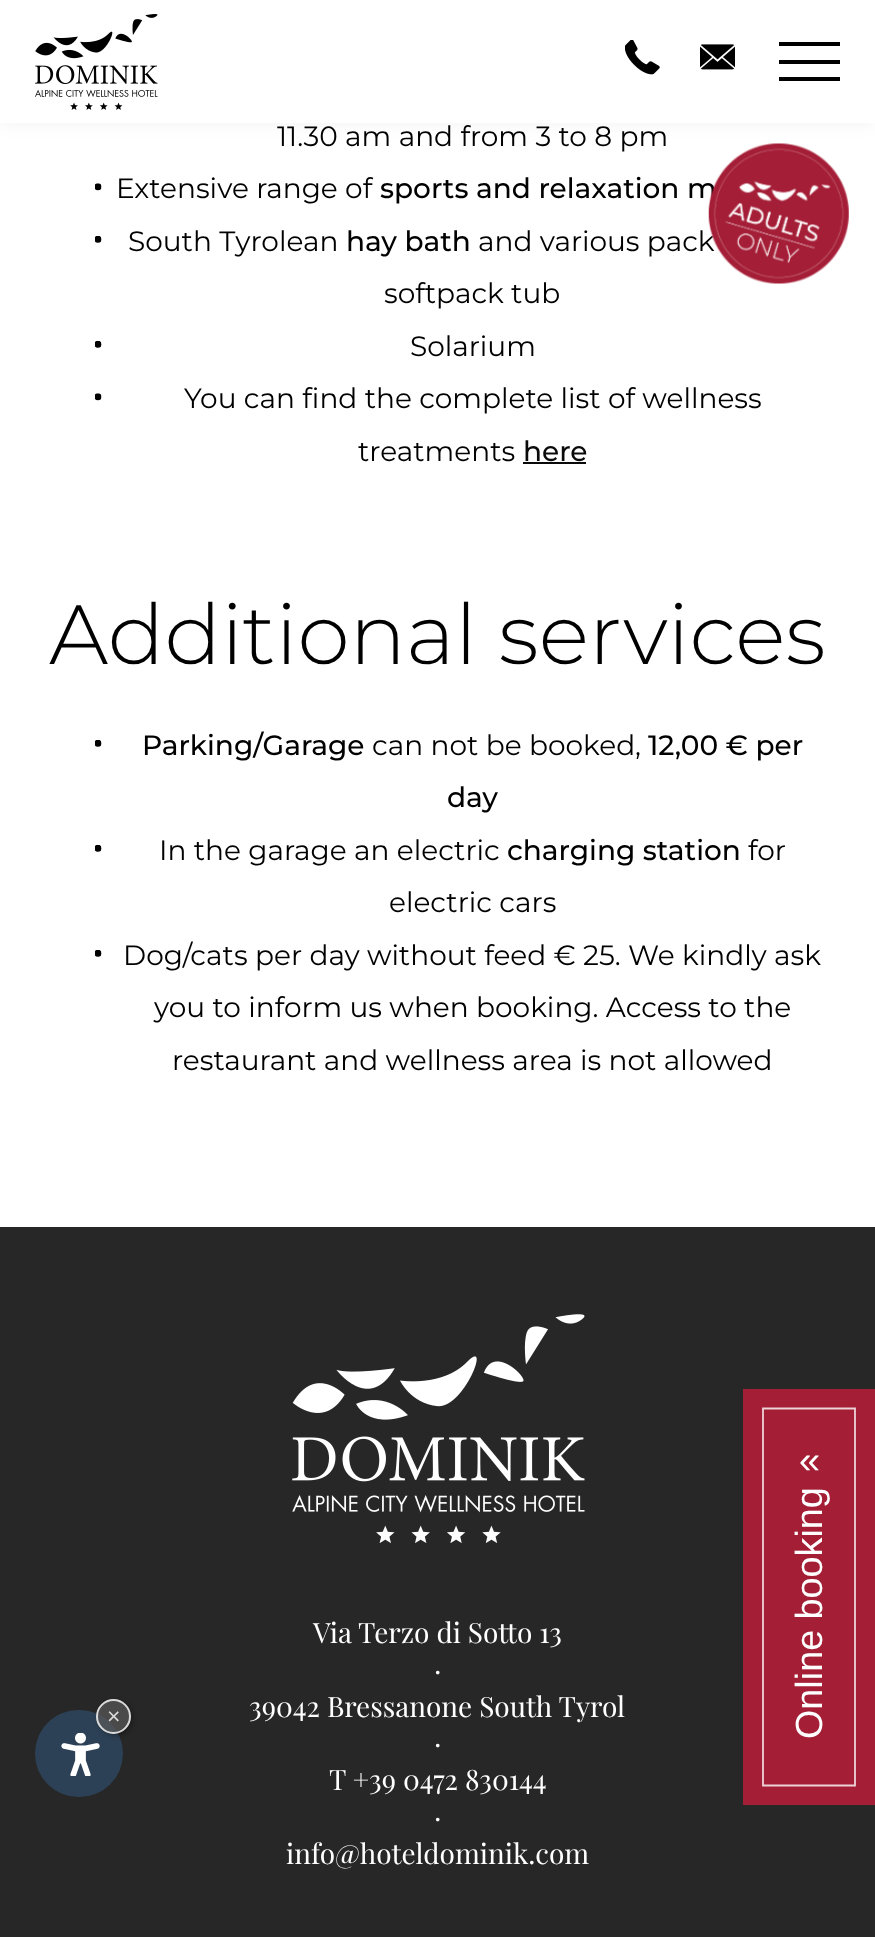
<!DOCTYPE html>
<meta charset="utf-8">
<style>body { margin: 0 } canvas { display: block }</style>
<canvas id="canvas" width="875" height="1937"></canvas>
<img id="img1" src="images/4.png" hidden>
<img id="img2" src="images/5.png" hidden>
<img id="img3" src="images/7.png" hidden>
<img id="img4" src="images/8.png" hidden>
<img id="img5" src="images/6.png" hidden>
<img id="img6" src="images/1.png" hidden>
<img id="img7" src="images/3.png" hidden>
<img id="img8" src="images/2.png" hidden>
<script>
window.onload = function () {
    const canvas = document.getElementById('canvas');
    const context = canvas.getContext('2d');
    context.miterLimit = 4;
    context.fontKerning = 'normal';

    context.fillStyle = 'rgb(255, 255, 255)';
    context.fillRect(0, 0, 875, 1937);
    context.drawImage(document.getElementById('img1'), 95, 183, 7, 8);
    context.drawImage(document.getElementById('img2'), 95, 236, 7, 7);
    context.drawImage(document.getElementById('img2'), 95, 341, 7, 7);
    context.drawImage(document.getElementById('img1'), 95, 393, 7, 8);
    context.fillStyle = 'rgb(10, 10, 10)';
    context.fillRect(523, 462, 63, 2);
    context.drawImage(document.getElementById('img2'), 95, 740, 7, 7);
    context.drawImage(document.getElementById('img2'), 95, 845, 7, 7);
    context.drawImage(document.getElementById('img2'), 95, 950, 7, 7);
    context.fillStyle = 'rgb(39, 39, 39)';
    context.fillRect(0, 1227, 875, 710);
    context.fillStyle = 'rgb(45, 65, 86)';
    context.beginPath();
    context.roundRect(35, 1710, 88, 87, 43.5);
    context.fill();
    context.drawImage(document.getElementById('img3'), 61, 1733, 39, 43);
    context.save();
    context.beginPath();
    context.moveTo(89, 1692);
    context.lineTo(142, 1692);
    context.lineTo(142, 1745);
    context.lineTo(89, 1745);
    context.closePath();
    context.moveTo(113.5, 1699);
    context.bezierCurveTo(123, 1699, 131, 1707, 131, 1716.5);
    context.bezierCurveTo(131, 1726, 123, 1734, 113.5, 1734);
    context.bezierCurveTo(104, 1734, 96, 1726, 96, 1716.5);
    context.bezierCurveTo(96, 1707, 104, 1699, 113.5, 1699);
    context.closePath();
    context.clip('evenodd');
    context.fillStyle = 'rgba(0, 0, 0, 0.3)';
    context.filter = 'blur(2.5px)';
    context.beginPath();
    context.roundRect(98, 1701, 35, 35, 17.5);
    context.fill();
    context.filter = 'none';
    context.restore();
    context.fillStyle = 'rgba(90, 90, 90, 0.7)';
    context.beginPath();
    context.arc(113.5, 1716.5, 16.5, 0, 2 * Math.PI);
    context.fill();
    context.strokeStyle = 'rgb(218, 218, 218)';
    context.lineWidth = 2;
    context.stroke();
    context.drawImage(document.getElementById('img4'), 292, 1314, 293, 229);
    context.fillStyle = 'rgb(164, 31, 53)';
    context.fillRect(743, 1389, 132, 416);
    context.beginPath();
    context.moveTo(763, 1785.5);
    context.lineTo(763, 1408.5);
    context.lineTo(855, 1408.5);
    context.lineTo(855, 1785.5);
    context.closePath();
    context.strokeStyle = 'rgb(237, 210, 215)';
    context.lineWidth = 1.8;
    context.stroke();
    context.font = '28px Montserrat';
    context.fillStyle = 'rgb(0, 0, 0)';
    context.fillText('11.30 am and from 3 to 8 pm', 277, 146);
    context.fillText('Extensive range of', 116, 198);
    context.font = '500 28px Montserrat';
    context.fillText('sports and relaxation m', 380, 198);
    context.font = '28px Montserrat';
    context.fillText('South Tyrolean', 128, 251);
    context.font = '500 28px Montserrat';
    context.fillText('hay bath', 346, 251);
    context.font = '28px Montserrat';
    context.fillText('and various pack', 478, 251);
    context.fillText('softpack tub', 384, 303);
    context.fillText('Solarium', 410, 356);
    context.fillText('You can find the complete list of wellness', 184, 408);
    context.fillText('treatments', 358, 461);
    context.font = '500 28px Montserrat';
    context.fillStyle = 'rgb(10, 10, 10)';
    context.fillText('here', 523, 461);
    context.font = '300 84px Montserrat';
    context.fillStyle = 'rgb(0, 0, 0)';
    context.fillText('Additional services', 49, 664);
    context.font = '500 28px Montserrat';
    context.fillText('Parking/Garage', 142, 755);
    context.font = '28px Montserrat';
    context.fillText('can not be booked,', 372, 755);
    context.font = '500 28px Montserrat';
    context.fillText('12,00 € per', 648, 755);
    context.fillText('day', 447, 807);
    context.font = '28px Montserrat';
    context.fillText('In the garage an electric', 159, 860);
    context.font = '500 28px Montserrat';
    context.fillText('charging station', 507, 860);
    context.font = '28px Montserrat';
    context.fillText('for', 748, 860);
    context.fillText('electric cars', 389, 912);
    context.fillText('Dog/cats per day without feed € 25. We kindly ask', 123, 965);
    context.fillText('you to inform us when booking. Access to the', 154, 1017);
    context.fillText('restaurant and wellness area is not allowed', 172, 1070);
    context.drawImage(document.getElementById('img5'), 708, 143, 141, 141);
    context.fillStyle = 'rgba(0, 0, 0, 0.05)';
    context.filter = 'blur(9px)';
    context.beginPath();
    context.rect(0, 0, 875, 123);
    context.fill();
    context.filter = 'none';
    context.fillStyle = 'rgb(255, 255, 255)';
    context.fillRect(0, 0, 875, 123);
    context.fillStyle = 'rgb(0, 0, 0)';
    context.fillRect(779, 77, 61, 4);
    context.fillRect(779, 60, 61, 4);
    context.fillRect(779, 42, 61, 4);
    context.drawImage(document.getElementById('img6'), 35, 14, 123, 96);
    context.drawImage(document.getElementById('img7'), 700, 44, 35, 26);
    context.drawImage(document.getElementById('img8'), 625, 40, 35, 35);
    context.font = '23px Liberation Sans';
    context.fillStyle = 'rgb(218, 218, 218)';
    context.fillText('×', 107, 1724);
    context.font = '28px Playfair Display';
    context.fillStyle = 'rgb(255, 255, 255)';
    context.fillText('Via Terzo di Sotto 13', 313, 1643);
    context.fillText('·', 434, 1680);
    context.fillText('39042 Bressanone South Tyrol', 249, 1717);
    context.fillText('·', 434, 1753);
    context.fillText('T +39 0472 830144', 329, 1790);
    context.fillText('·', 434, 1827);
    context.fillText('info@hoteldominik.com', 286, 1864);
    context.font = '37.75px Liberation Sans';
    context.save();
    context.translate(820, 1453);
    context.rotate(-180 * Math.PI / 180);
    context.fillText('»', 0, 0);
    context.restore();
    context.save();
    context.translate(822, 1739);
    context.rotate(-90 * Math.PI / 180);
    context.fillText('Online booking', 0, 0);
    context.restore();
};
</script>
